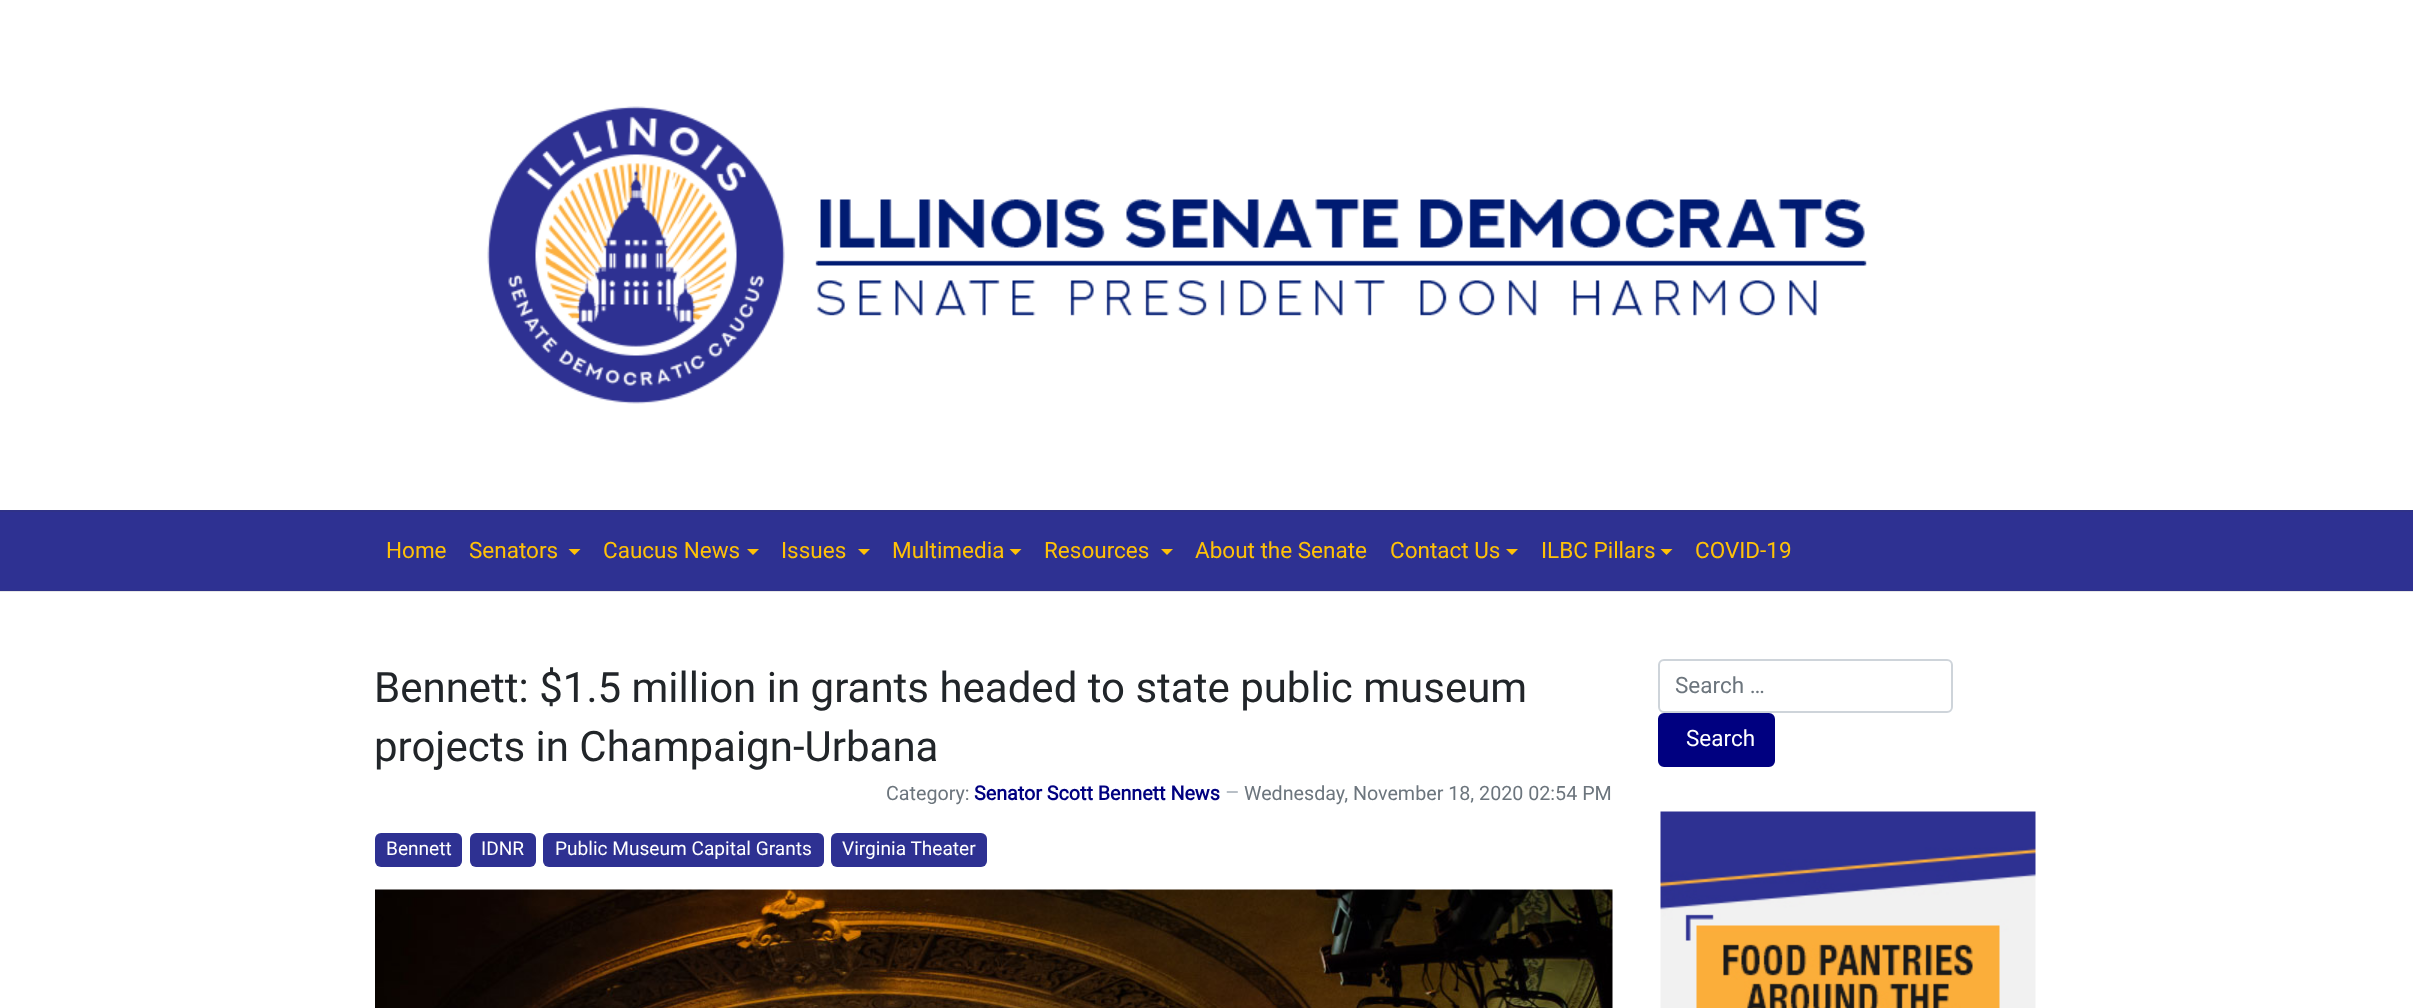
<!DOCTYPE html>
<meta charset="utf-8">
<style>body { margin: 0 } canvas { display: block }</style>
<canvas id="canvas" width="2413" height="1008"></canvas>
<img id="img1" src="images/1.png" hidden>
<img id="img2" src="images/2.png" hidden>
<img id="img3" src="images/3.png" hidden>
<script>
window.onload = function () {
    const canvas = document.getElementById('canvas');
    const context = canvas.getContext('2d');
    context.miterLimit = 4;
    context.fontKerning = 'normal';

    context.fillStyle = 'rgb(255, 255, 255)';
    context.fillRect(0, 0, 2413, 1008);
    context.fillStyle = 'rgb(231, 231, 232)';
    context.fillRect(0, 591, 2413, 1);
    context.drawImage(document.getElementById('img1'), 487, 106, 1380, 298);
    context.fillStyle = 'rgb(46, 49, 146)';
    context.fillRect(0, 512, 2413, 78);
    context.fillStyle = 'rgb(47, 50, 136)';
    context.fillRect(0, 590, 2413, 1);
    context.fillRect(0, 510, 2413, 2);
    context.fillStyle = 'rgb(255, 193, 7)';
    context.beginPath();
    context.moveTo(568.5, 549);
    context.lineTo(580.5, 549);
    context.lineTo(574.5, 555);
    context.closePath();
    context.fill();
    context.beginPath();
    context.moveTo(747, 549);
    context.lineTo(759, 549);
    context.lineTo(753, 555);
    context.closePath();
    context.fill();
    context.beginPath();
    context.moveTo(858, 549);
    context.lineTo(870, 549);
    context.lineTo(864, 555);
    context.closePath();
    context.fill();
    context.beginPath();
    context.moveTo(1009.5, 549);
    context.lineTo(1021.5, 549);
    context.lineTo(1015.5, 555);
    context.closePath();
    context.fill();
    context.beginPath();
    context.moveTo(1161, 549);
    context.lineTo(1173, 549);
    context.lineTo(1167, 555);
    context.closePath();
    context.fill();
    context.beginPath();
    context.moveTo(1506, 549);
    context.lineTo(1518, 549);
    context.lineTo(1512, 555);
    context.closePath();
    context.fill();
    context.beginPath();
    context.moveTo(1660.5, 549);
    context.lineTo(1672.5, 549);
    context.lineTo(1666.5, 555);
    context.closePath();
    context.fill();
    context.fillStyle = 'rgb(46, 49, 146)';
    context.beginPath();
    context.roundRect(375, 833, 87, 34, 6);
    context.fill();
    context.beginPath();
    context.roundRect(470, 833, 66, 34, 6);
    context.fill();
    context.beginPath();
    context.roundRect(543, 833, 281, 34, 6);
    context.fill();
    context.beginPath();
    context.roundRect(831, 833, 156, 34, 6);
    context.fill();
    context.drawImage(document.getElementById('img2'), 375, 889, 1238, 119);
    context.beginPath();
    context.roundRect(1659, 660, 293, 52, 5);
    context.strokeStyle = 'rgb(206, 212, 218)';
    context.lineWidth = 2;
    context.stroke();
    context.fillStyle = 'rgb(0, 0, 128)';
    context.beginPath();
    context.roundRect(1659, 714, 115, 52, 5);
    context.fill();
    context.strokeStyle = 'rgb(0, 0, 128)';
    context.stroke();
    context.drawImage(document.getElementById('img3'), 1660, 811, 376, 197);
    context.font = '22.5px Roboto';
    context.fillStyle = 'rgb(255, 193, 7)';
    context.fillText('Home', 386, 558);
    context.fillText('Senators', 469, 558);
    context.fillText('Caucus News', 603, 558);
    context.fillText('Issues', 781, 558);
    context.fillText('Multimedia', 892, 558);
    context.fillText('Resources', 1044, 558);
    context.fillText('About the Senate', 1195, 558);
    context.fillText('Contact Us', 1390, 558);
    context.fillText('ILBC Pillars', 1541, 558);
    context.fillText('COVID-19', 1695, 558);
    context.font = '42px Roboto';
    context.fillStyle = 'rgb(33, 37, 41)';
    context.fillText('Bennett: $1.5 million in grants headed to state public museum', 374, 702);
    context.fillText('projects in Champaign-Urbana', 374, 761);
    context.font = '19.7px Roboto';
    context.fillStyle = 'rgb(108, 117, 125)';
    context.fillText('Category:', 886, 800);
    context.font = 'bold 19.7px Roboto';
    context.fillStyle = 'rgb(0, 0, 128)';
    context.fillText('Senator Scott Bennett News', 974, 800);
    context.font = '22.5px Roboto';
    context.fillStyle = 'rgb(173, 181, 189)';
    context.fillText('–', 1225, 800);
    context.font = '19.7px Roboto';
    context.fillStyle = 'rgb(108, 117, 125)';
    context.fillText('Wednesday, November 18, 2020 02:54 PM', 1244, 800);
    context.font = '19.1px Roboto';
    context.fillStyle = 'rgb(255, 255, 255)';
    context.fillText('Bennett', 386, 855);
    context.fillText('IDNR', 481, 855);
    context.fillText('Public Museum Capital Grants', 555, 855);
    context.fillText('Virginia Theater', 842, 855);
    context.font = '22.5px Roboto';
    context.fillStyle = 'rgb(108, 117, 125)';
    context.fillText('Search …', 1675, 693);
    context.fillStyle = 'rgb(255, 255, 255)';
    context.fillText('Search', 1686, 746);
};
</script>
